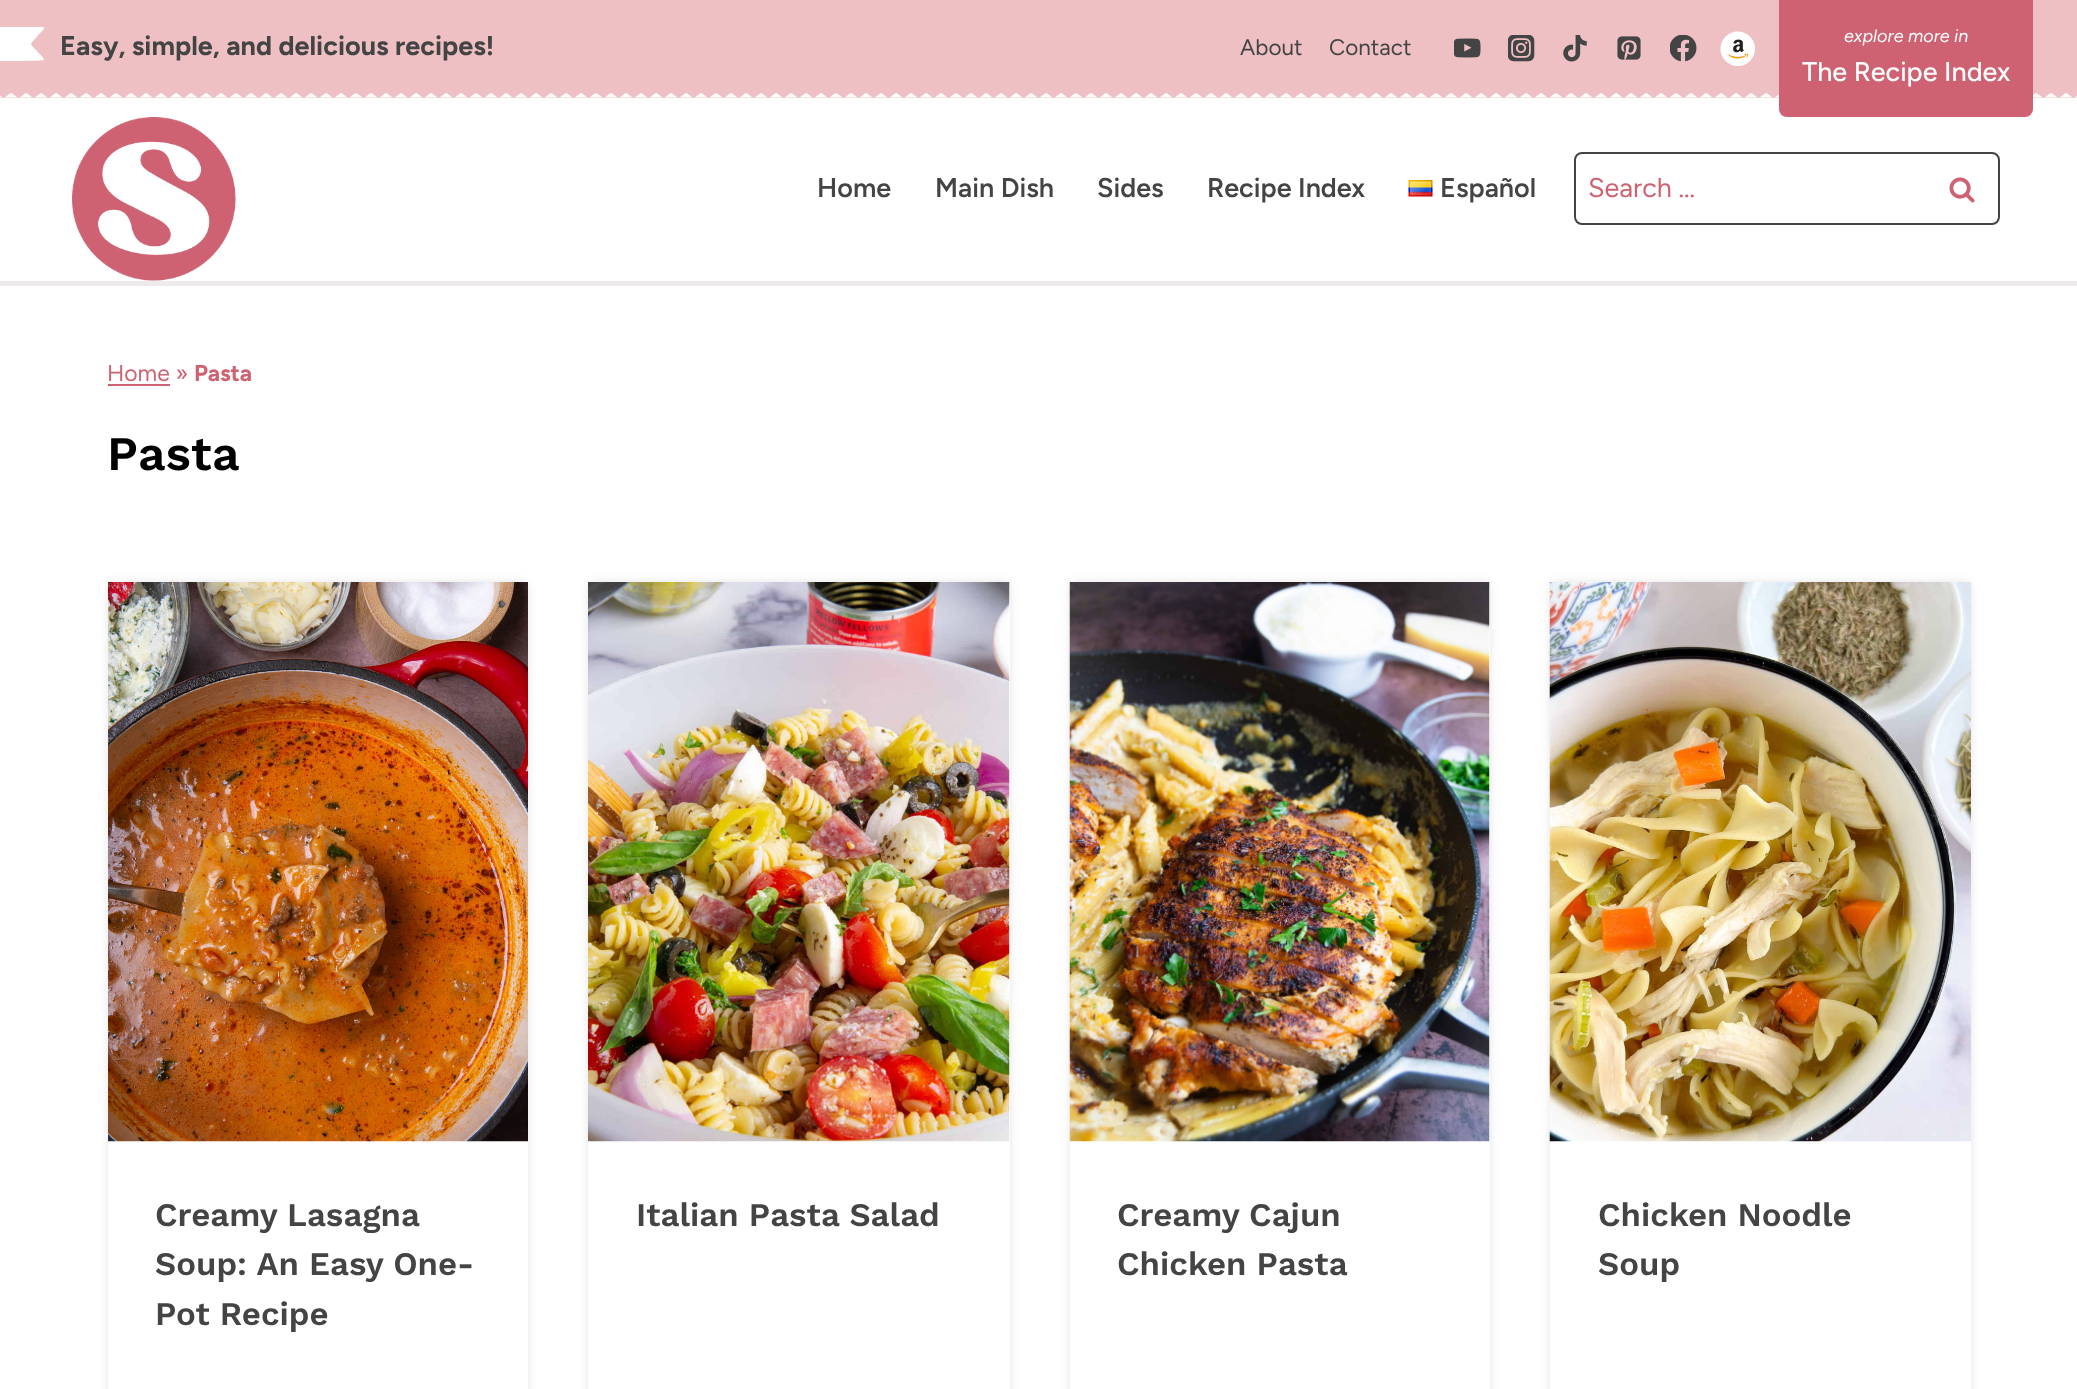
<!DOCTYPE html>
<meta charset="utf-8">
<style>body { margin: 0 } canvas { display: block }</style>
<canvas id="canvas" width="2077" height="1389"></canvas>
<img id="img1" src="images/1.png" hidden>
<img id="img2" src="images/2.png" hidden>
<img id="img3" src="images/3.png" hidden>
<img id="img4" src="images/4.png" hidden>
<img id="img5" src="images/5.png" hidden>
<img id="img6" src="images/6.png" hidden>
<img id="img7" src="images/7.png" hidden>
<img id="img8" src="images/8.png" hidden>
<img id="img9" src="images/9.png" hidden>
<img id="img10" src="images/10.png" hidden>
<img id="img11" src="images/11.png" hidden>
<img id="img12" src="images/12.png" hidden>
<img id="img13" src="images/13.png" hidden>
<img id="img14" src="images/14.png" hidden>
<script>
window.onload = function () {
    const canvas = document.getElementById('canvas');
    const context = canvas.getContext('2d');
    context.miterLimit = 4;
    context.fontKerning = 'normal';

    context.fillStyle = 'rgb(255, 255, 255)';
    context.fillRect(0, 0, 2077, 1389);
    context.fillStyle = 'rgb(238, 192, 195)';
    context.fillRect(0, 0, 2077, 98);
    context.drawImage(document.getElementById('img1'), 0, 93, 2077, 5);
    context.fillStyle = 'rgb(255, 255, 255)';
    context.beginPath();
    context.moveTo(44, 29);
    context.bezierCurveTo(42, 31, 31, 43, 31, 44);
    context.bezierCurveTo(32, 47, 45, 58, 44, 60);
    context.bezierCurveTo(43, 61, 4, 61, 0, 61);
    context.lineTo(0, 27);
    context.lineTo(43, 27);
    context.bezierCurveTo(44, 27, 44, 28, 44, 29);
    context.closePath();
    context.fill();
    context.drawImage(document.getElementById('img2'), 1454, 38, 27, 20);
    context.drawImage(document.getElementById('img3'), 1508, 35, 27, 27);
    context.drawImage(document.getElementById('img4'), 1563, 35, 24, 27);
    context.drawImage(document.getElementById('img5'), 1617, 36, 24, 24);
    context.drawImage(document.getElementById('img6'), 1670, 35, 27, 27);
    context.drawImage(document.getElementById('img7'), 1720, 31, 35, 35);
    context.fillStyle = 'rgb(206, 98, 114)';
    context.beginPath();
    context.roundRect(1779, 0, 254, 117, [0, 0, 8, 8]);
    context.fill();
    context.fillStyle = 'rgb(238, 234, 235)';
    context.fillRect(0, 281, 2077, 5);
    context.drawImage(document.getElementById('img8'), 72, 117, 164, 164);
    context.drawImage(document.getElementById('img9'), 1408, 180, 25, 17);
    context.beginPath();
    context.roundRect(1575, 153, 424, 71, 7);
    context.strokeStyle = 'rgb(68, 68, 68)';
    context.lineWidth = 2;
    context.stroke();
    context.drawImage(document.getElementById('img10'), 1949, 177, 26, 26);
    context.fillStyle = 'rgb(206, 98, 114)';
    context.fillRect(108, 384, 62, 2);
    context.fillStyle = 'rgba(0, 0, 0, 0.1)';
    context.filter = 'blur(5px)';
    context.beginPath();
    context.roundRect(108, 582, 420, 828, 6);
    context.fill();
    context.filter = 'none';
    context.fillStyle = 'rgb(255, 255, 255)';
    context.fillRect(108, 1141, 420, 248);
    context.drawImage(document.getElementById('img11'), 108, 582, 420, 560);
    context.fillStyle = 'rgba(0, 0, 0, 0.1)';
    context.filter = 'blur(5px)';
    context.beginPath();
    context.roundRect(588, 582, 422, 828, 6);
    context.fill();
    context.filter = 'none';
    context.fillStyle = 'rgb(255, 255, 255)';
    context.beginPath();
    context.roundRect(588, 582, 422, 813, 6);
    context.fill();
    context.drawImage(document.getElementById('img12'), 588, 582, 422, 560);
    context.fillStyle = 'rgba(0, 0, 0, 0.1)';
    context.filter = 'blur(5px)';
    context.beginPath();
    context.roundRect(1070, 582, 420, 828, 6);
    context.fill();
    context.filter = 'none';
    context.fillStyle = 'rgb(255, 255, 255)';
    context.beginPath();
    context.roundRect(1070, 582, 420, 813, 6);
    context.fill();
    context.drawImage(document.getElementById('img13'), 1069, 582, 421, 560);
    context.fillStyle = 'rgba(0, 0, 0, 0.1)';
    context.filter = 'blur(5px)';
    context.beginPath();
    context.roundRect(1550, 582, 421, 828, 6);
    context.fill();
    context.filter = 'none';
    context.fillStyle = 'rgb(255, 255, 255)';
    context.fillRect(1550, 1141, 421, 248);
    context.drawImage(document.getElementById('img14'), 1549, 582, 422, 560);
    context.font = 'bold 27px Figtree';
    context.fillStyle = 'rgb(68, 68, 68)';
    context.fillText('Easy, simple, and delicious recipes!', 60, 55);
    context.font = '22.5px Figtree';
    context.fillText('About', 1240, 55);
    context.fillText('Contact', 1329, 55);
    context.font = 'italic 18px Figtree';
    context.fillStyle = 'rgb(255, 255, 255)';
    context.fillText('explore more in', 1844, 42);
    context.font = '500 27px Figtree';
    context.fillText('The Recipe Index', 1802, 81);
    context.font = '600 27px Figtree';
    context.fillStyle = 'rgb(68, 68, 68)';
    context.fillText('Home', 817, 197);
    context.fillText('Main Dish', 935, 197);
    context.fillText('Sides', 1097, 197);
    context.fillText('Recipe Index', 1207, 197);
    context.fillText('Español', 1440, 197);
    context.font = '27px Figtree';
    context.fillStyle = 'rgb(206, 98, 114)';
    context.fillText('Search …', 1588, 197);
    context.font = '23px Figtree';
    context.fillText('Home »', 107, 381);
    context.font = 'bold 23px Figtree';
    context.fillText('Pasta', 194, 381);
    context.font = '600 48px Work Sans';
    context.fillStyle = 'rgb(0, 0, 0)';
    context.fillText('Pasta', 107, 470);
    context.font = '600 33px Work Sans';
    context.fillStyle = 'rgb(68, 68, 68)';
    context.fillText('Creamy Lasagna', 155, 1226);
    context.fillText('Soup: An Easy One-', 155, 1275);
    context.fillText('Pot Recipe', 155, 1325);
    context.fillText('Italian Pasta Salad', 636, 1226);
    context.fillText('Creamy Cajun', 1117, 1226);
    context.fillText('Chicken Pasta', 1117, 1275);
    context.fillText('Chicken Noodle', 1598, 1226);
    context.fillText('Soup', 1598, 1275);
};
</script>
